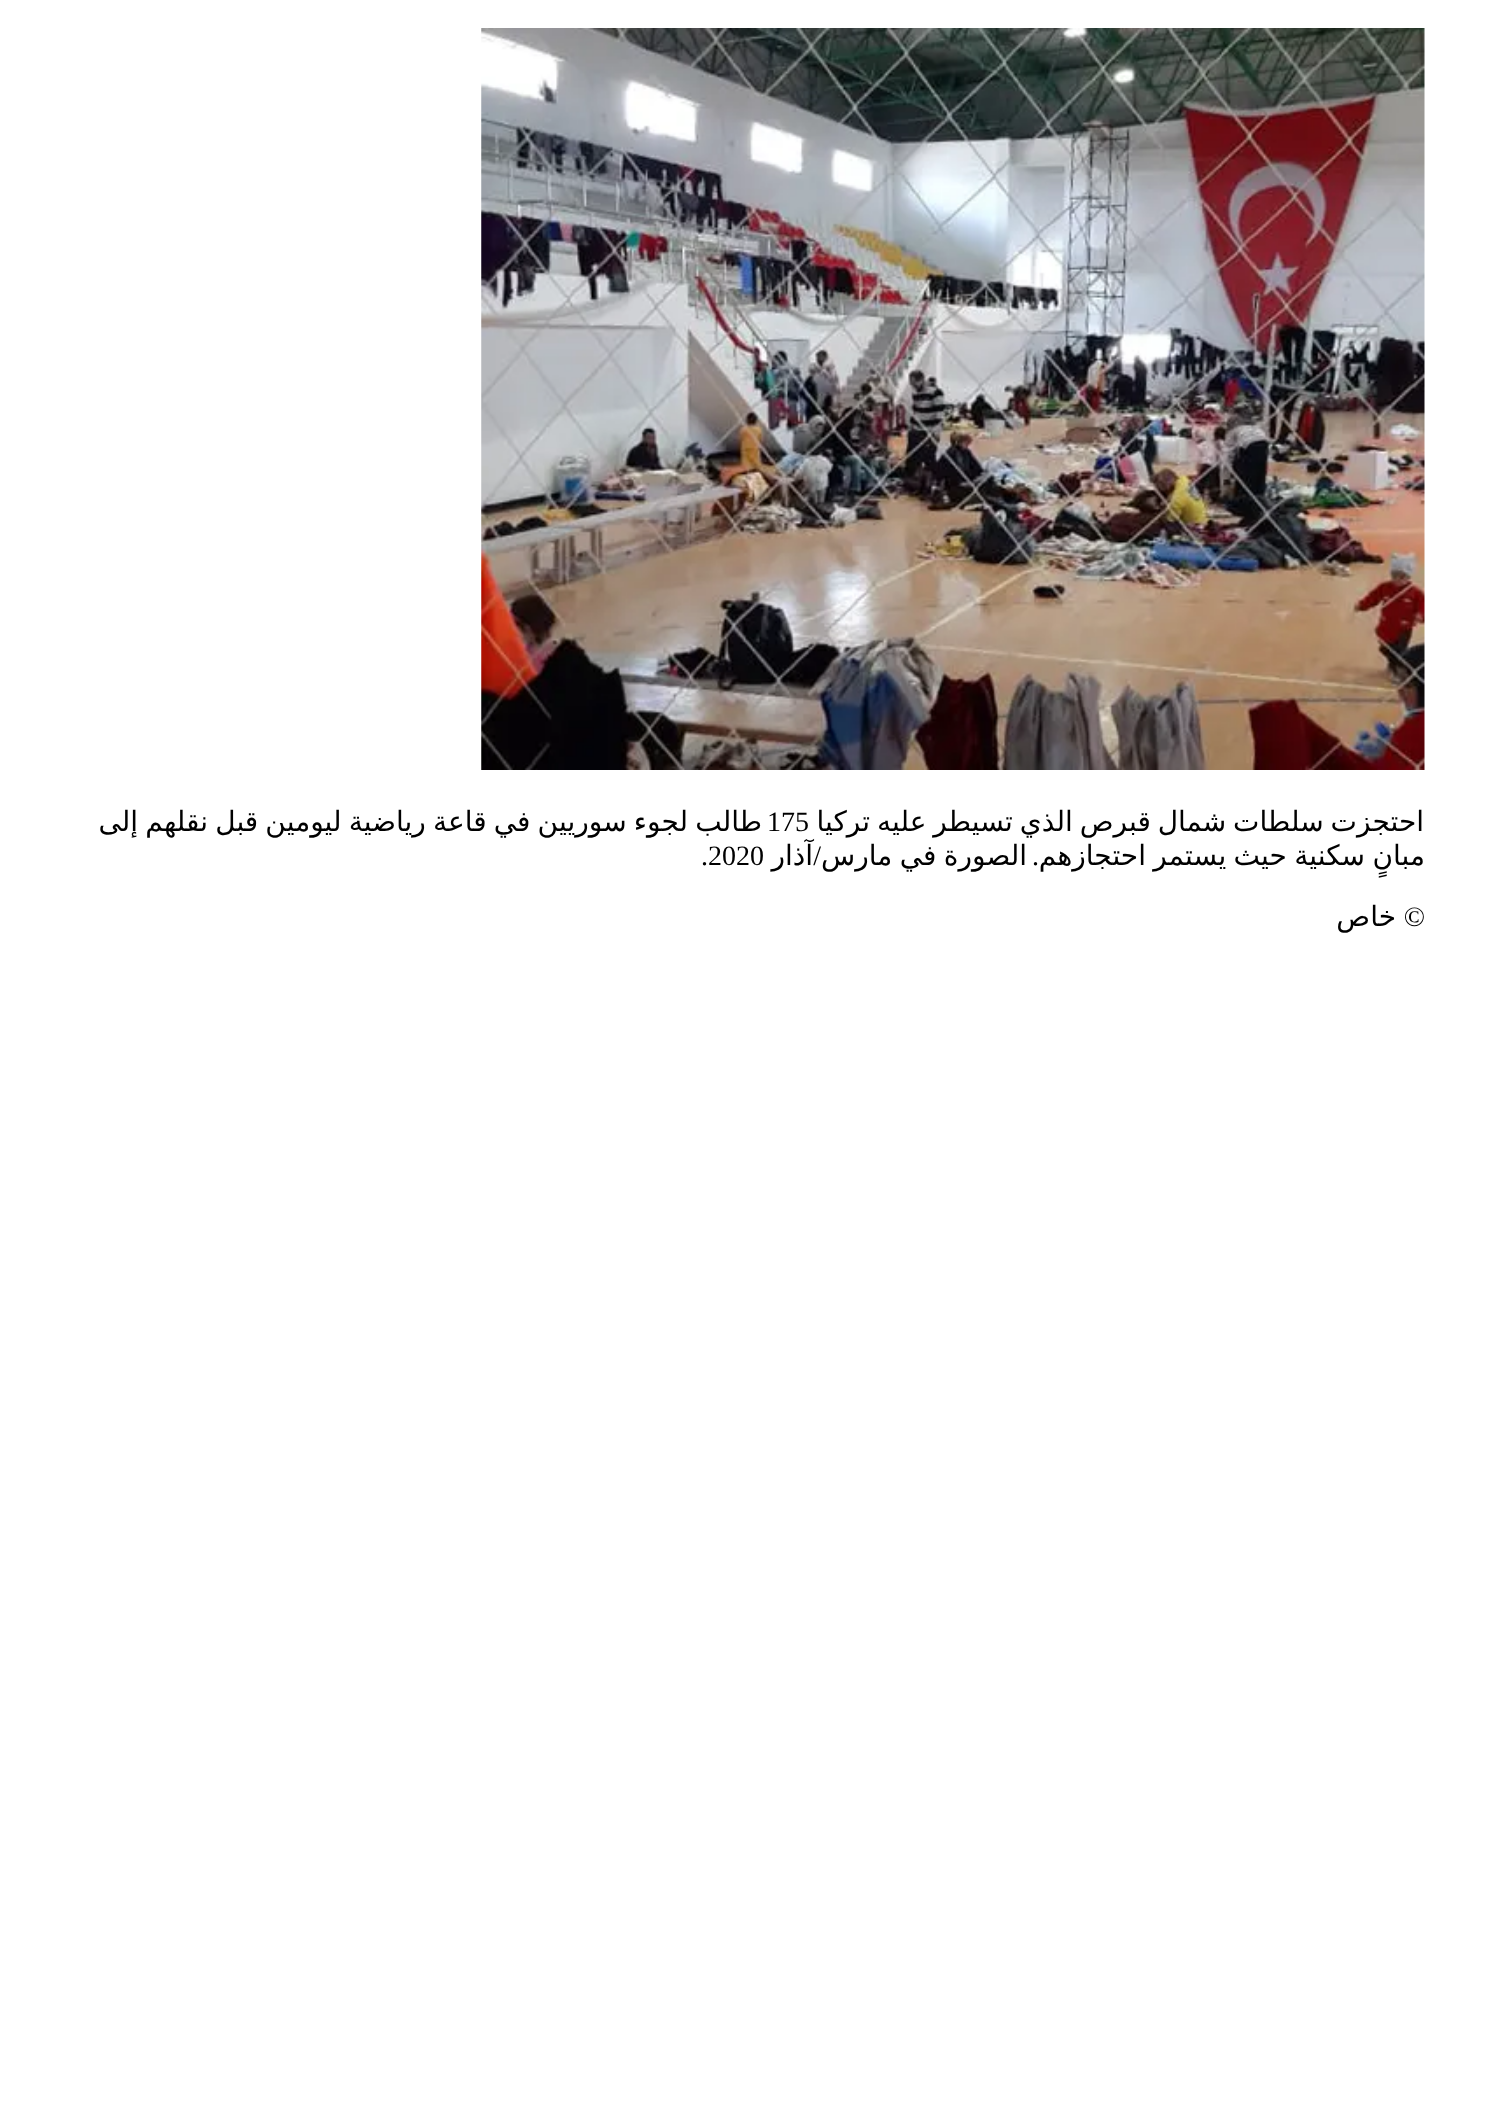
<!DOCTYPE html>
<meta charset="utf-8">
<style>body { margin: 0 } canvas { display: block }</style>
<canvas id="canvas" width="1508" height="2127"></canvas>
<img id="img1" src="images/1.png" hidden>
<script>
window.onload = function () {
    const canvas = document.getElementById('canvas');
    const context = canvas.getContext('2d');
    context.miterLimit = 4;
    context.fontKerning = 'normal';

    context.fillStyle = 'rgb(255, 255, 255)';
    context.fillRect(0, 0, 1508, 2127);
    context.drawImage(document.getElementById('img1'), 481, 28, 944, 742);
    context.wordSpacing = '-2px';
    context.direction = 'rtl';
    context.font = '28px DejaVu Sans';
    context.fillStyle = 'rgb(0, 0, 0)';
    context.fillText('احتجزت سلطات شمال قبرص الذي تسيطر عليه تركيا', 1424, 831);
    context.wordSpacing = '0px';
    context.direction = 'ltr';
    context.font = '28px Liberation Serif';
    context.fillText('175', 767, 831);
    context.wordSpacing = '-1.75px';
    context.direction = 'rtl';
    context.font = '28px DejaVu Sans';
    context.fillText('طالب لجوء سوريين في قاعة رياضية ليومين قبل نقلهم إلى', 762, 831);
    context.wordSpacing = '-1.5px';
    context.fillText('مبانٍ سكنية حيث يستمر احتجازهم', 1425, 865);
    context.wordSpacing = '0px';
    context.font = '28px Liberation Serif';
    context.fillText('.', 1039, 865);
    context.wordSpacing = '-1.5px';
    context.font = '28px DejaVu Sans';
    context.fillText('الصورة في مارس', 1027, 865);
    context.wordSpacing = '0px';
    context.fillText('آذار', 813, 865);
    context.font = '28px Liberation Serif';
    context.fillText('/', 821, 865);
    context.direction = 'ltr';
    context.fillText('.2020', 701, 865);
    context.direction = 'rtl';
    context.fillText('©', 1425, 926);
    context.font = '28px DejaVu Sans';
    context.fillText('خاص', 1396, 926);
};
</script>
